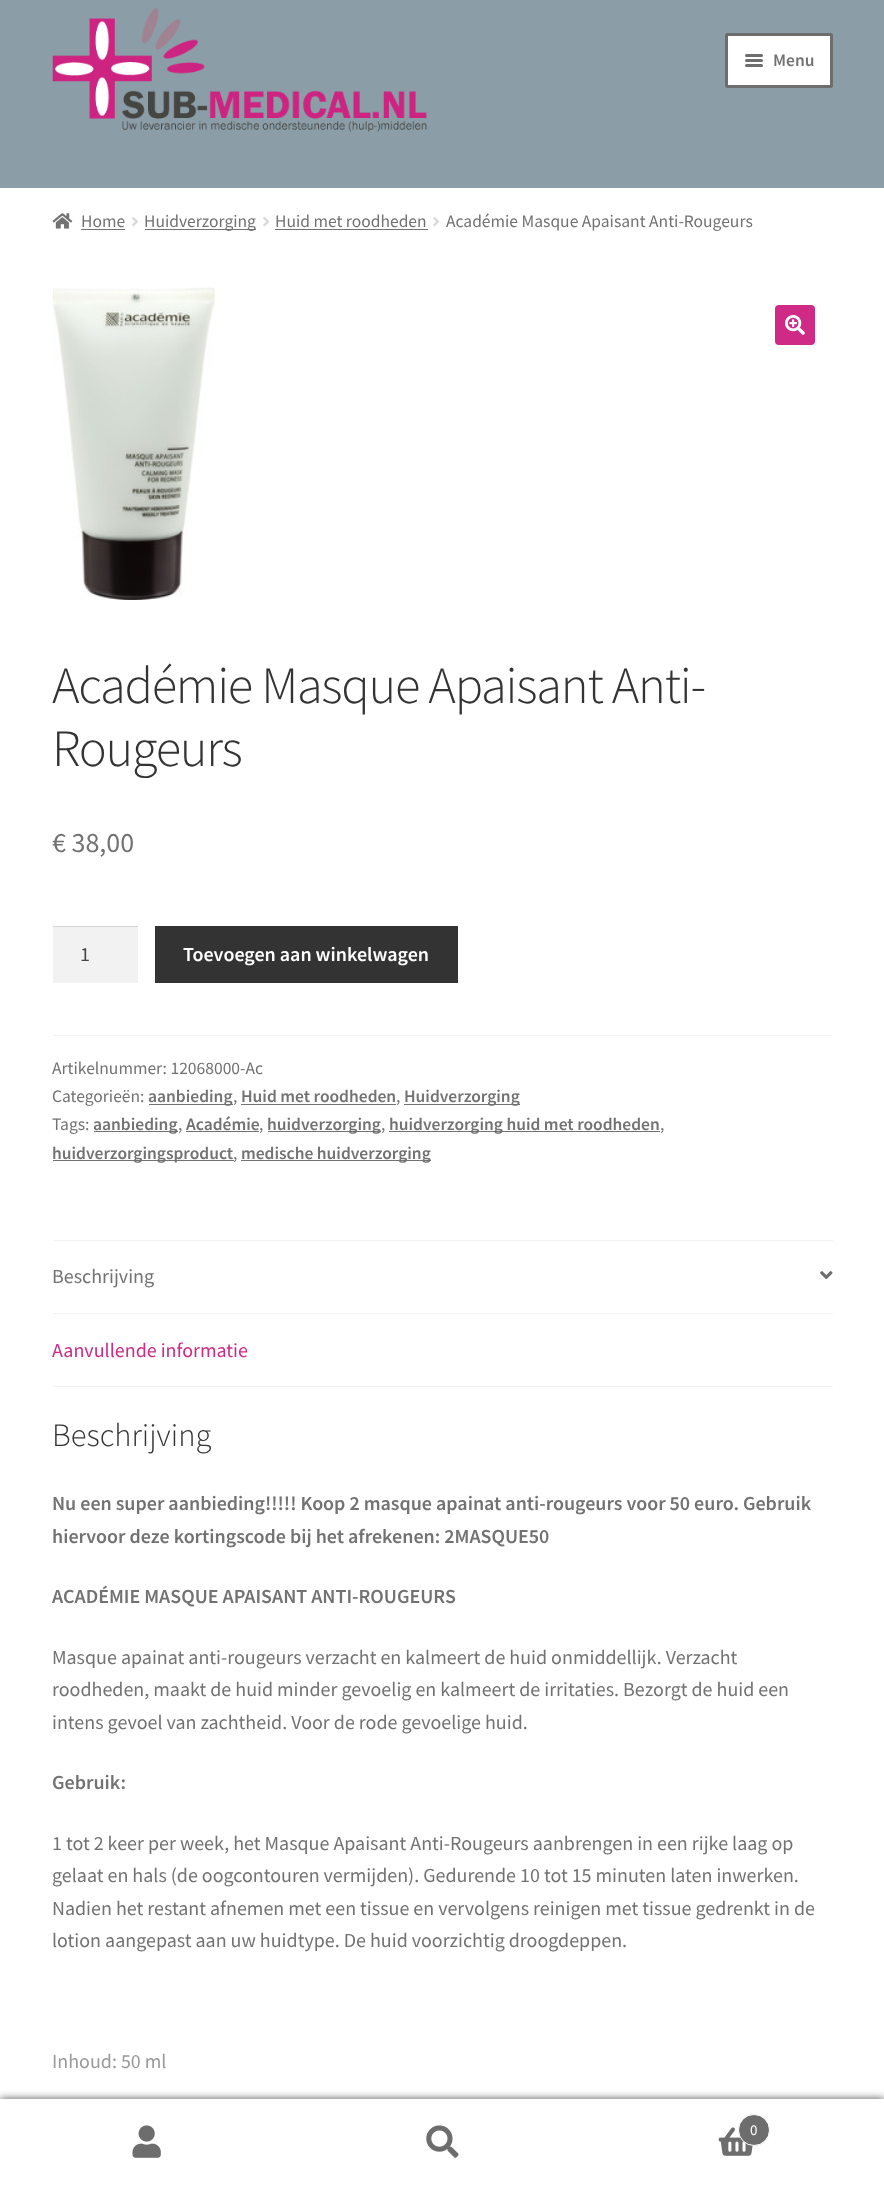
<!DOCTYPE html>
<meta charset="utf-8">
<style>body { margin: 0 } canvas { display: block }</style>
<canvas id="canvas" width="884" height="2185"></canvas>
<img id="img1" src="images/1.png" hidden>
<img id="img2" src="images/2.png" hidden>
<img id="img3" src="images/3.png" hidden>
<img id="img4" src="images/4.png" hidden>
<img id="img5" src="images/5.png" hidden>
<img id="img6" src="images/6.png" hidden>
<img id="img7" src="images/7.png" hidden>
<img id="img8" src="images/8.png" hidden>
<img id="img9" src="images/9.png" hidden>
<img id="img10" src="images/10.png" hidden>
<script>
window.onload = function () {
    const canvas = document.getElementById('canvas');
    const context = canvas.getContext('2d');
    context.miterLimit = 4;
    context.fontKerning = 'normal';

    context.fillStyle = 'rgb(255, 255, 255)';
    context.fillRect(0, 0, 884, 2185);
    context.fillStyle = 'rgb(139, 157, 166)';
    context.fillRect(0, 0, 884, 188);
    context.drawImage(document.getElementById('img1'), 52, 8, 375, 124);
    context.fillStyle = 'rgb(255, 255, 255)';
    context.beginPath();
    context.roundRect(726.5, 34.5, 105, 52, 1);
    context.fill();
    context.strokeStyle = 'rgb(109, 109, 109)';
    context.lineWidth = 3;
    context.stroke();
    context.fillStyle = 'rgb(109, 109, 109)';
    context.beginPath();
    context.roundRect(745, 54, 18, 3, 1.5);
    context.fill();
    context.beginPath();
    context.roundRect(745, 59, 18, 3, 1.5);
    context.fill();
    context.beginPath();
    context.roundRect(745, 64, 18, 3, 1.5);
    context.fill();
    context.drawImage(document.getElementById('img2'), 52, 213, 21, 16);
    context.fillStyle = 'rgb(114, 114, 114)';
    context.fillRect(81, 229, 44, 1);
    context.drawImage(document.getElementById('img3'), 132, 217, 6, 10);
    context.fillRect(145, 229, 111, 1);
    context.drawImage(document.getElementById('img4'), 263, 217, 7, 10);
    context.fillRect(275, 229, 153, 1);
    context.drawImage(document.getElementById('img4'), 433, 217, 7, 10);
    context.drawImage(document.getElementById('img5'), 52, 287, 163, 313);
    context.fillStyle = 'rgb(206, 42, 134)';
    context.beginPath();
    context.roundRect(775, 305, 40, 40, 4);
    context.fill();
    context.drawImage(document.getElementById('img6'), 785, 315, 20, 20);
    context.fillStyle = 'rgb(242, 242, 242)';
    context.fillRect(53, 927, 85, 56);
    context.fillStyle = 'rgb(212, 212, 212)';
    context.fillRect(53, 926, 85, 1);
    context.fillStyle = 'rgb(51, 51, 51)';
    context.fillRect(155, 926, 303, 57);
    context.fillStyle = 'rgb(242, 242, 242)';
    context.fillRect(53, 1035, 780, 1);
    context.fillStyle = 'rgb(114, 114, 114)';
    context.fillRect(149, 1104, 84, 1);
    context.fillRect(241, 1104, 155, 1);
    context.fillRect(404, 1104, 116, 1);
    context.fillRect(94, 1131, 84, 1);
    context.fillRect(186, 1131, 73, 1);
    context.fillRect(268, 1131, 113, 1);
    context.fillRect(389, 1131, 271, 1);
    context.fillRect(53, 1160, 181, 1);
    context.fillRect(241, 1160, 190, 1);
    context.fillStyle = 'rgb(242, 242, 242)';
    context.fillRect(53, 1240, 780, 1);
    context.fillRect(53, 1313, 780, 1);
    context.drawImage(document.getElementById('img7'), 820, 1271, 13, 8);
    context.fillRect(53, 1386, 780, 1);
    context.fillStyle = 'rgba(0, 0, 0, 0.7)';
    context.filter = 'blur(4px)';
    context.beginPath();
    context.rect(0, 2099, 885, 86);
    context.fill();
    context.filter = 'none';
    context.fillStyle = 'rgb(255, 255, 255)';
    context.fillRect(0, 2099, 884, 86);
    context.drawImage(document.getElementById('img8'), 132, 2125, 29, 33);
    context.drawImage(document.getElementById('img9'), 426, 2125, 33, 33);
    context.drawImage(document.getElementById('img10'), 718, 2127, 35, 29);
    context.fillStyle = 'rgb(109, 109, 109)';
    context.beginPath();
    context.arc(754, 2130, 15.5, 0, 2 * Math.PI);
    context.fill();
    context.strokeStyle = 'rgb(255, 255, 255)';
    context.lineWidth = 1;
    context.stroke();
    context.font = '600 17.5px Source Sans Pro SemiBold';
    context.fillStyle = 'rgb(114, 114, 114)';
    context.fillText('Menu', 773, 66);
    context.font = '17.5px Source Sans Pro';
    context.fillText('Home', 81, 227);
    context.fillText('Huidverzorging', 144, 227);
    context.fillText('Huid met roodheden', 275, 227);
    context.fillText('Académie Masque Apaisant Anti-Rougeurs', 446, 227);
    context.letterSpacing = '-1.25px';
    context.font = '300 52.4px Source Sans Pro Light';
    context.fillStyle = 'rgb(51, 51, 51)';
    context.fillText('Académie Masque Apaisant Anti-', 52, 703);
    context.fillText('Rougeurs', 52, 766);
    context.letterSpacing = '0px';
    context.font = '28px Source Sans Pro';
    context.fillStyle = 'rgb(114, 114, 114)';
    context.fillText('€ 38,00', 52, 852);
    context.font = '20px Source Sans Pro';
    context.fillStyle = 'rgb(67, 69, 75)';
    context.fillText('1', 80, 961);
    context.font = '600 20px Source Sans Pro SemiBold';
    context.fillStyle = 'rgb(255, 255, 255)';
    context.fillText('Toevoegen aan winkelwagen', 183, 961);
    context.font = '17.5px Source Sans Pro';
    context.fillStyle = 'rgb(114, 114, 114)';
    context.fillText('Artikelnummer: 12068000-Ac', 52, 1074);
    context.fillText('Categorieën:', 52, 1102);
    context.font = '600 17.5px Source Sans Pro SemiBold';
    context.fillText('aanbieding', 148, 1102);
    context.font = '17.5px Source Sans Pro';
    context.fillText(',', 233, 1102);
    context.font = '600 17.5px Source Sans Pro SemiBold';
    context.fillText('Huid met roodheden', 241, 1102);
    context.font = '17.5px Source Sans Pro';
    context.fillText(',', 396, 1102);
    context.font = '600 17.5px Source Sans Pro SemiBold';
    context.fillText('Huidverzorging', 404, 1102);
    context.font = '17.5px Source Sans Pro';
    context.fillText('Tags:', 52, 1130);
    context.font = '600 17.5px Source Sans Pro SemiBold';
    context.fillText('aanbieding', 93, 1130);
    context.font = '17.5px Source Sans Pro';
    context.fillText(',', 178, 1130);
    context.font = '600 17.5px Source Sans Pro SemiBold';
    context.fillText('Académie', 186, 1130);
    context.font = '17.5px Source Sans Pro';
    context.fillText(',', 259, 1130);
    context.font = '600 17.5px Source Sans Pro SemiBold';
    context.fillText('huidverzorging', 267, 1130);
    context.font = '17.5px Source Sans Pro';
    context.fillText(',', 381, 1130);
    context.font = '600 17.5px Source Sans Pro SemiBold';
    context.fillText('huidverzorging huid met roodheden', 389, 1130);
    context.font = '17.5px Source Sans Pro';
    context.fillText(',', 660, 1130);
    context.font = '600 17.5px Source Sans Pro SemiBold';
    context.fillText('huidverzorgingsproduct', 52, 1159);
    context.font = '17.5px Source Sans Pro';
    context.fillText(',', 233, 1159);
    context.font = '600 17.5px Source Sans Pro SemiBold';
    context.fillText('medische huidverzorging', 241, 1159);
    context.font = '20px Source Sans Pro';
    context.fillText('Beschrijving', 52, 1283);
    context.fillStyle = 'rgb(206, 42, 134)';
    context.fillText('Aanvullende informatie', 52, 1357);
    context.font = '300 32.5px Source Sans Pro Light';
    context.fillStyle = 'rgb(51, 51, 51)';
    context.fillText('Beschrijving', 52, 1446);
    context.font = '600 20px Source Sans Pro SemiBold';
    context.fillStyle = 'rgb(114, 114, 114)';
    context.fillText('Nu een super aanbieding!!!!! Koop 2 masque apainat anti-rougeurs voor 50 euro. Gebruik', 52, 1510);
    context.fillText('hiervoor deze kortingscode bij het afrekenen: 2MASQUE50', 52, 1543);
    context.fillText('ACADÉMIE MASQUE APAISANT ANTI-ROUGEURS', 52, 1603);
    context.font = '20px Source Sans Pro';
    context.fillText('Masque apainat anti-rougeurs verzacht en kalmeert de huid onmiddellijk. Verzacht', 52, 1664);
    context.fillText('roodheden, maakt de huid minder gevoelig en kalmeert de irritaties. Bezorgt de huid een', 52, 1696);
    context.fillText('intens gevoel van zachtheid. Voor de rode gevoelige huid.', 52, 1729);
    context.font = '600 20px Source Sans Pro SemiBold';
    context.fillText('Gebruik:', 52, 1789);
    context.font = '20px Source Sans Pro';
    context.fillText('1 tot 2 keer per week, het Masque Apaisant Anti-Rougeurs aanbrengen in een rijke laag op', 52, 1850);
    context.fillText('gelaat en hals (de oogcontouren vermijden). Gedurende 10 tot 15 minuten laten inwerken.', 52, 1882);
    context.fillText('Nadien het restant afnemen met een tissue en vervolgens reinigen met tissue gedrenkt in de', 52, 1915);
    context.fillText('lotion aangepast aan uw huidtype. De huid voorzichtig droogdeppen.', 52, 1947);
    context.fillStyle = 'rgb(153, 153, 153)';
    context.fillText('Inhoud: 50 ml', 52, 2068);
    context.font = '15px Source Sans Pro';
    context.fillStyle = 'rgb(255, 255, 255)';
    context.fillText('0', 750, 2135);
};
</script>
